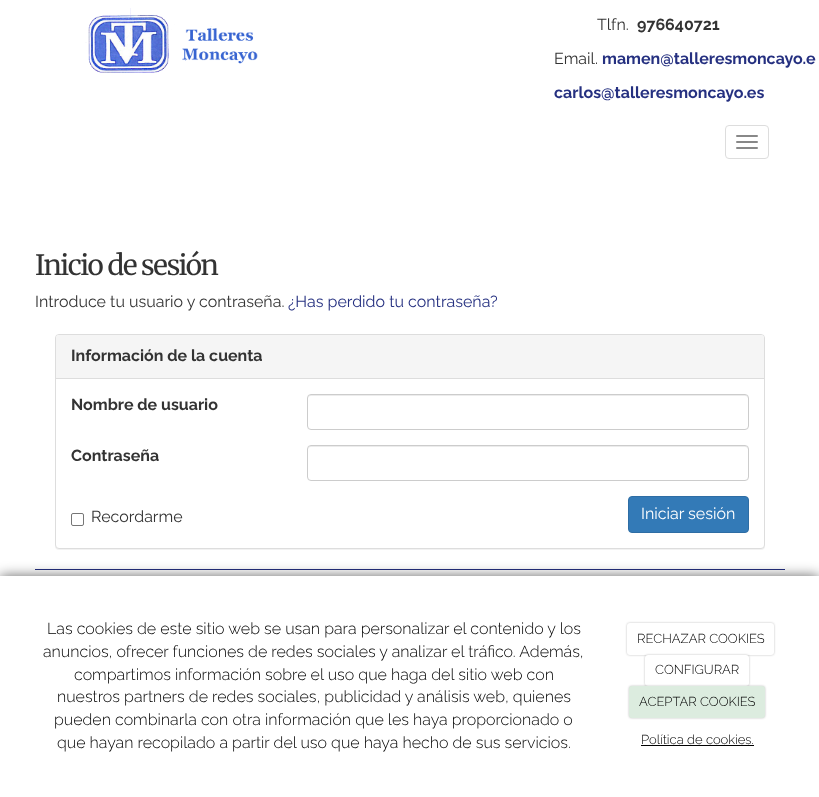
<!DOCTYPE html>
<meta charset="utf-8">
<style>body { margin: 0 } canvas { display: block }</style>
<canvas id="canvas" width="819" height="797"></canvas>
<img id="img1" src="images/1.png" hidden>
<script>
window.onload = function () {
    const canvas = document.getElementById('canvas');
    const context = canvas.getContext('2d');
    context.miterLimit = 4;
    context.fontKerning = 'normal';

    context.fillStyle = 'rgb(255, 255, 255)';
    context.fillRect(0, 0, 819, 797);
    context.drawImage(document.getElementById('img1'), 85, 8, 173, 65);
    context.beginPath();
    context.roundRect(725.5, 125.5, 43, 33, 3.5);
    context.strokeStyle = 'rgb(221, 221, 221)';
    context.stroke();
    context.fillStyle = 'rgb(136, 136, 136)';
    context.beginPath();
    context.roundRect(736, 135, 22, 2, 1);
    context.fill();
    context.beginPath();
    context.roundRect(736, 141, 22, 2, 1);
    context.fill();
    context.beginPath();
    context.roundRect(736, 147, 22, 2, 1);
    context.fill();
    context.fillStyle = 'rgba(0, 0, 0, 0.05)';
    context.filter = 'blur(0.5px)';
    context.beginPath();
    context.roundRect(55, 335, 710, 215, 4);
    context.fill();
    context.filter = 'none';
    context.fillStyle = 'rgb(255, 255, 255)';
    context.beginPath();
    context.roundRect(55.5, 334.5, 709, 214, 3.5);
    context.fill();
    context.stroke();
    context.fillStyle = 'rgb(245, 245, 245)';
    context.beginPath();
    context.roundRect(56, 335, 708, 44, [3, 3, 0, 0]);
    context.fill();
    context.fillStyle = 'rgb(221, 221, 221)';
    context.fillRect(56, 378, 708, 1);
    context.fillStyle = 'rgb(236, 236, 236)';
    context.beginPath();
    context.moveTo(311, 396);
    context.lineTo(745, 396);
    context.bezierCurveTo(747, 396, 748, 397, 748, 399);
    context.lineTo(748, 397);
    context.lineTo(746, 395);
    context.lineTo(311, 395);
    context.bezierCurveTo(309, 395, 308, 397, 308, 399);
    context.bezierCurveTo(308, 397, 309, 396, 311, 396);
    context.closePath();
    context.fill();
    context.beginPath();
    context.roundRect(307.5, 394.5, 441, 35, 3.5);
    context.strokeStyle = 'rgb(204, 204, 204)';
    context.stroke();
    context.beginPath();
    context.moveTo(311, 447);
    context.lineTo(745, 447);
    context.bezierCurveTo(747, 447, 748, 448, 748, 450);
    context.lineTo(748, 448);
    context.lineTo(746, 446);
    context.lineTo(311, 446);
    context.bezierCurveTo(309, 446, 308, 448, 308, 450);
    context.bezierCurveTo(308, 448, 309, 447, 311, 447);
    context.closePath();
    context.fill();
    context.beginPath();
    context.roundRect(307.5, 445.5, 441, 35, 3.5);
    context.stroke();
    context.beginPath();
    context.roundRect(71.5, 513.5, 12, 12, 1.5);
    context.strokeStyle = 'rgb(118, 118, 118)';
    context.stroke();
    context.fillStyle = 'rgb(51, 122, 183)';
    context.beginPath();
    context.roundRect(628.5, 496.5, 120, 36, 3.5);
    context.fill();
    context.strokeStyle = 'rgb(46, 109, 164)';
    context.stroke();
    context.fillStyle = 'rgb(37, 48, 128)';
    context.fillRect(35, 569, 750, 1);
    context.fillStyle = 'rgba(0, 0, 0, 0.6)';
    context.filter = 'blur(6.5px)';
    context.beginPath();
    context.rect(0, 576, 819, 221);
    context.fill();
    context.filter = 'none';
    context.fillStyle = 'rgb(255, 255, 255)';
    context.fillRect(0, 576, 819, 221);
    context.fillStyle = 'rgba(0, 0, 0, 0.25)';
    context.filter = 'blur(1px)';
    context.beginPath();
    context.roundRect(627, 623, 147, 32, 3);
    context.fill();
    context.filter = 'none';
    context.fillStyle = 'rgb(255, 255, 255)';
    context.beginPath();
    context.roundRect(627, 623, 147, 32, 3);
    context.fill();
    context.fillStyle = 'rgba(0, 0, 0, 0.25)';
    context.filter = 'blur(1px)';
    context.beginPath();
    context.roundRect(645, 655, 104, 31, 3);
    context.fill();
    context.filter = 'none';
    context.fillStyle = 'rgb(255, 255, 255)';
    context.beginPath();
    context.roundRect(645, 655, 104, 31, 3);
    context.fill();
    context.fillStyle = 'rgba(0, 0, 0, 0.25)';
    context.filter = 'blur(1px)';
    context.beginPath();
    context.roundRect(629, 686, 136, 32, 3);
    context.fill();
    context.filter = 'none';
    context.fillStyle = 'rgb(220, 236, 223)';
    context.beginPath();
    context.roundRect(629, 686, 136, 32, 3);
    context.fill();
    context.fillStyle = 'rgb(0, 0, 0)';
    context.fillRect(641, 745, 113, 1);
    context.font = '16px Raleway';
    context.fillStyle = 'rgb(51, 51, 51)';
    context.fillText('Tlfn.', 597, 30);
    context.font = 'bold 16px Raleway';
    context.fillText('976640721', 637, 30);
    context.font = '16px Raleway';
    context.fillText('Email.', 554, 64);
    context.font = 'bold 16px Raleway';
    context.fillStyle = 'rgb(37, 48, 128)';
    context.fillText('mamen@talleresmoncayo.e', 602, 64);
    context.fillText('carlos@talleresmoncayo.es', 554, 98);
    context.letterSpacing = '-1.4px';
    context.font = '28px Merriweather';
    context.fillStyle = 'rgb(51, 51, 51)';
    context.fillText('Inicio de sesión', 35, 275);
    context.letterSpacing = '0px';
    context.font = '16px Raleway';
    context.fillText('Introduce tu usuario y contraseña.', 35, 307);
    context.fillStyle = 'rgb(37, 48, 128)';
    context.fillText('¿Has perdido tu contraseña?', 288, 307);
    context.font = 'bold 16px Raleway';
    context.fillStyle = 'rgb(51, 51, 51)';
    context.fillText('Información de la cuenta', 71, 361);
    context.fillText('Nombre de usuario', 71, 410);
    context.fillText('Contraseña', 71, 461);
    context.font = '16px Raleway';
    context.fillText('Recordarme', 91, 522);
    context.fillStyle = 'rgb(255, 255, 255)';
    context.fillText('Iniciar sesión', 641, 519);
    context.font = '300 16px Raleway';
    context.fillStyle = 'rgb(0, 0, 0)';
    context.fillText('Las cookies de este sitio web se usan para personalizar el contenido y los', 47, 634);
    context.fillText('anuncios, ofrecer funciones de redes sociales y analizar el tráfico. Además,', 43, 657);
    context.fillText('compartimos información sobre el uso que haga del sitio web con', 74, 680);
    context.fillText('nuestros partners de redes sociales, publicidad y análisis web, quienes', 57, 702);
    context.fillText('pueden combinarla con otra información que les haya proporcionado o', 54, 725);
    context.fillText('que hayan recopilado a partir del uso que haya hecho de sus servicios.', 57, 748);
    context.font = '300 13px Raleway';
    context.fillText('RECHAZAR COOKIES', 637, 643);
    context.fillText('CONFIGURAR', 655, 674);
    context.fillText('ACEPTAR COOKIES', 639, 706);
    context.fillText('Política de cookies.', 641, 744);
};
</script>
